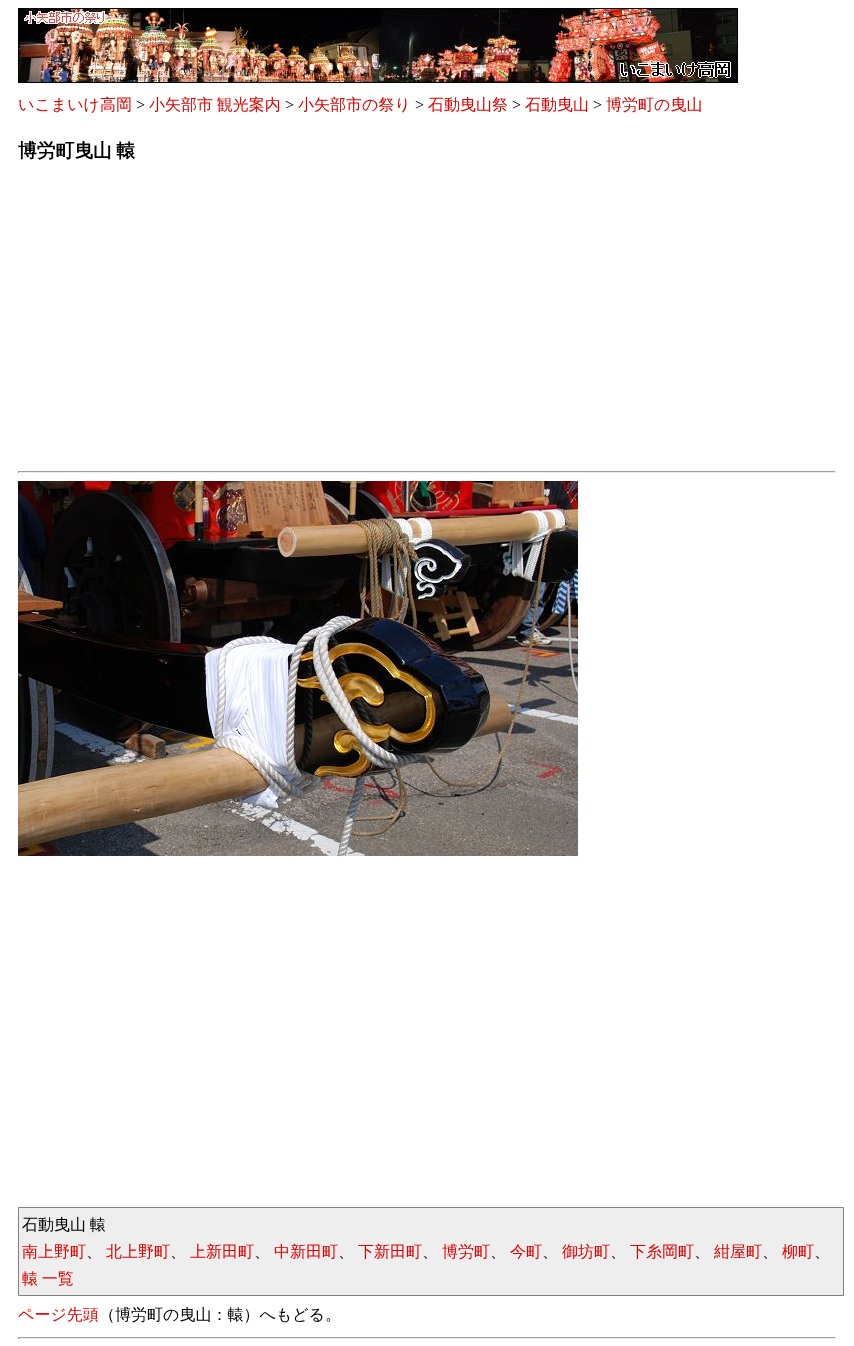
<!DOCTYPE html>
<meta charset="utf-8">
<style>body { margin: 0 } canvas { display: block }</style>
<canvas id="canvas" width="854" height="1346"></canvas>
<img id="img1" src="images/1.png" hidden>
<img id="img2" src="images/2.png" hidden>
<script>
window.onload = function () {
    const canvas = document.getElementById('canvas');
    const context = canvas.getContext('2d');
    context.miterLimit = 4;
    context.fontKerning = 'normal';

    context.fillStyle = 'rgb(255, 255, 255)';
    context.fillRect(0, 0, 854, 1346);
    context.drawImage(document.getElementById('img1'), 18, 8, 720, 75);
    context.fillStyle = 'rgb(159, 159, 159)';
    context.fillRect(18, 471, 818, 1);
    context.fillStyle = 'rgb(238, 238, 238)';
    context.fillRect(835, 471, 1, 2);
    context.fillRect(18, 472, 818, 1);
    context.fillStyle = 'rgb(159, 159, 159)';
    context.fillRect(18, 471, 1, 2);
    context.drawImage(document.getElementById('img2'), 18, 481, 560, 375);
    context.fillStyle = 'rgb(238, 238, 238)';
    context.beginPath();
    context.rect(18.5, 1207.5, 825, 88);
    context.fill();
    context.strokeStyle = 'rgb(128, 128, 128)';
    context.stroke();
    context.fillStyle = 'rgb(159, 159, 159)';
    context.fillRect(18, 1337, 818, 1);
    context.fillStyle = 'rgb(238, 238, 238)';
    context.fillRect(835, 1337, 1, 2);
    context.fillRect(18, 1338, 818, 1);
    context.fillStyle = 'rgb(159, 159, 159)';
    context.fillRect(18, 1337, 1, 2);
    context.font = '500 16px WenQuanYi Zen Hei';
    context.fillStyle = 'rgb(224, 0, 0)';
    context.fillText('いこまいけ高岡', 18, 110);
    context.font = '16px Liberation Serif';
    context.fillStyle = 'rgb(0, 0, 0)';
    context.fillText('>', 136, 110);
    context.wordSpacing = '-1px';
    context.font = '500 16px WenQuanYi Zen Hei';
    context.fillStyle = 'rgb(224, 0, 0)';
    context.fillText('小矢部市 観光案内', 149, 110);
    context.wordSpacing = '0px';
    context.font = '16px Liberation Serif';
    context.fillStyle = 'rgb(0, 0, 0)';
    context.fillText('>', 285, 110);
    context.font = '500 16px WenQuanYi Zen Hei';
    context.fillStyle = 'rgb(224, 0, 0)';
    context.fillText('小矢部市の祭り', 298, 110);
    context.font = '16px Liberation Serif';
    context.fillStyle = 'rgb(0, 0, 0)';
    context.fillText('>', 415, 110);
    context.font = '500 16px WenQuanYi Zen Hei';
    context.fillStyle = 'rgb(224, 0, 0)';
    context.fillText('石動曳山祭', 428, 110);
    context.font = '16px Liberation Serif';
    context.fillStyle = 'rgb(0, 0, 0)';
    context.fillText('>', 512, 110);
    context.font = '500 16px WenQuanYi Zen Hei';
    context.fillStyle = 'rgb(224, 0, 0)';
    context.fillText('石動曳山', 525, 110);
    context.font = '16px Liberation Serif';
    context.fillStyle = 'rgb(0, 0, 0)';
    context.fillText('>', 593, 110);
    context.font = '500 16px WenQuanYi Zen Hei';
    context.fillStyle = 'rgb(224, 0, 0)';
    context.fillText('博労町の曳山', 606, 110);
    context.wordSpacing = '-1px';
    context.font = 'bold 18.75px WenQuanYi Zen Hei';
    context.fillStyle = 'rgb(0, 0, 0)';
    context.fillText('博労町曳山 轅', 18, 157);
    context.font = '500 16px WenQuanYi Zen Hei';
    context.fillText('石動曳山 轅', 22, 1230);
    context.wordSpacing = '0px';
    context.fillStyle = 'rgb(224, 0, 0)';
    context.fillText('南上野町', 22, 1257);
    context.fillStyle = 'rgb(0, 0, 0)';
    context.fillText('、', 86, 1257);
    context.fillStyle = 'rgb(224, 0, 0)';
    context.fillText('北上野町', 106, 1257);
    context.fillStyle = 'rgb(0, 0, 0)';
    context.fillText('、', 170, 1257);
    context.fillStyle = 'rgb(224, 0, 0)';
    context.fillText('上新田町', 190, 1257);
    context.fillStyle = 'rgb(0, 0, 0)';
    context.fillText('、', 254, 1257);
    context.fillStyle = 'rgb(224, 0, 0)';
    context.fillText('中新田町', 274, 1257);
    context.fillStyle = 'rgb(0, 0, 0)';
    context.fillText('、', 338, 1257);
    context.fillStyle = 'rgb(224, 0, 0)';
    context.fillText('下新田町', 358, 1257);
    context.fillStyle = 'rgb(0, 0, 0)';
    context.fillText('、', 422, 1257);
    context.fillStyle = 'rgb(224, 0, 0)';
    context.fillText('博労町', 442, 1257);
    context.fillStyle = 'rgb(0, 0, 0)';
    context.fillText('、', 490, 1257);
    context.fillStyle = 'rgb(224, 0, 0)';
    context.fillText('今町', 510, 1257);
    context.fillStyle = 'rgb(0, 0, 0)';
    context.fillText('、', 542, 1257);
    context.fillStyle = 'rgb(224, 0, 0)';
    context.fillText('御坊町', 562, 1257);
    context.fillStyle = 'rgb(0, 0, 0)';
    context.fillText('、', 610, 1257);
    context.fillStyle = 'rgb(224, 0, 0)';
    context.fillText('下糸岡町', 630, 1257);
    context.fillStyle = 'rgb(0, 0, 0)';
    context.fillText('、', 694, 1257);
    context.fillStyle = 'rgb(224, 0, 0)';
    context.fillText('紺屋町', 714, 1257);
    context.fillStyle = 'rgb(0, 0, 0)';
    context.fillText('、', 762, 1257);
    context.fillStyle = 'rgb(224, 0, 0)';
    context.fillText('柳町', 782, 1257);
    context.fillStyle = 'rgb(0, 0, 0)';
    context.fillText('、', 814, 1257);
    context.wordSpacing = '-1px';
    context.fillStyle = 'rgb(224, 0, 0)';
    context.fillText('轅 一覧', 22, 1284);
    context.wordSpacing = '0px';
    context.fillText('ページ先頭', 18, 1320);
    context.fillStyle = 'rgb(0, 0, 0)';
    context.fillText('（博労町の曳山：轅）へもどる。', 99, 1320);
};
</script>
